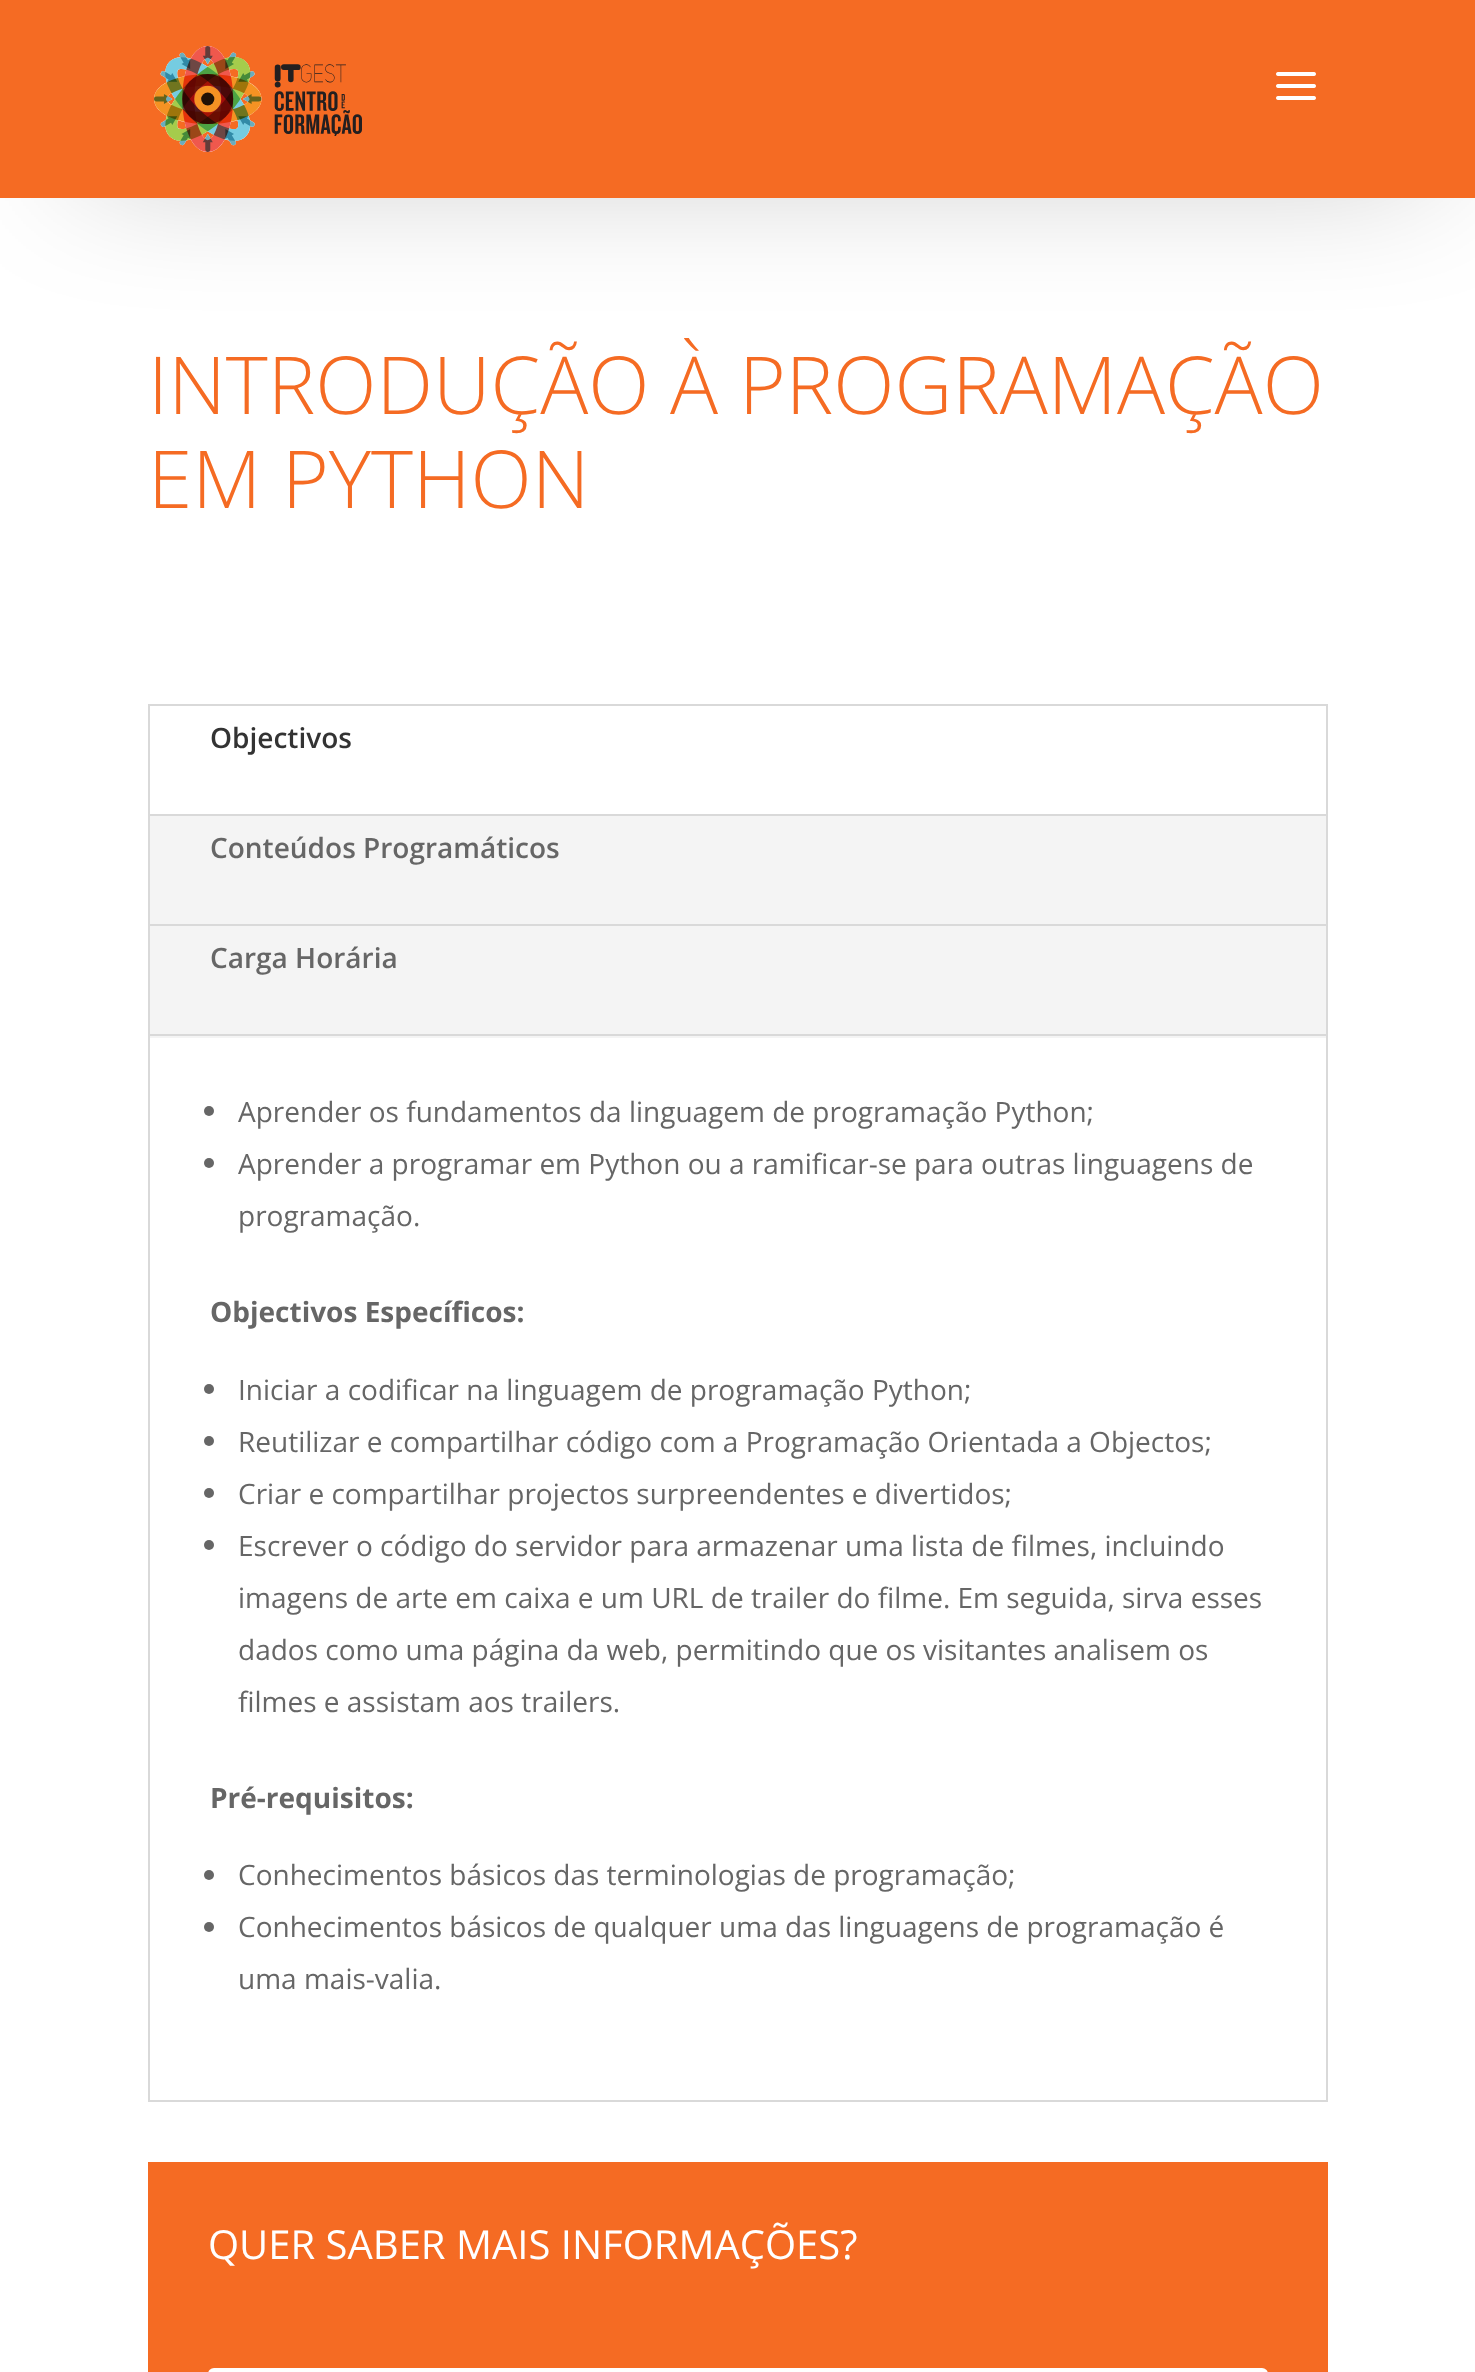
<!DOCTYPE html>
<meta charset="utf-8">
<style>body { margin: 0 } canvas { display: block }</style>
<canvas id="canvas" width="1475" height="2372"></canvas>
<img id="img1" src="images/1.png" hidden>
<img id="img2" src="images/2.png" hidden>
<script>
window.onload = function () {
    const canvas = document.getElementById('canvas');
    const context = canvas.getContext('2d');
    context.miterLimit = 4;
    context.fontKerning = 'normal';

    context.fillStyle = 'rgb(255, 255, 255)';
    context.fillRect(0, 0, 1475, 2372);
    context.fillStyle = 'rgba(0, 0, 0, 0.36)';
    context.filter = 'blur(71px)';
    context.beginPath();
    context.rect(84, 84, 1348, 70);
    context.fill();
    context.filter = 'none';
    context.fillStyle = 'rgb(245, 107, 35)';
    context.fillRect(0, 0, 1475, 198);
    context.drawImage(document.getElementById('img1'), 154, 46, 208, 106);
    context.drawImage(document.getElementById('img2'), 1276, 72, 40, 28);
    context.strokeStyle = 'rgb(217, 217, 217)';
    context.lineWidth = 2;
    context.strokeRect(149, 705, 1178, 1396);
    context.fillStyle = 'rgb(244, 244, 244)';
    context.fillRect(150, 816, 1176, 222);
    context.fillStyle = 'rgb(217, 217, 217)';
    context.fillRect(150, 814, 1176, 2);
    context.fillRect(150, 924, 1176, 2);
    context.fillRect(150, 1034, 1176, 2);
    context.fillStyle = 'rgb(102, 102, 102)';
    context.beginPath();
    context.arc(209, 1111, 5, 0, 2 * Math.PI);
    context.fill();
    context.beginPath();
    context.arc(209, 1163, 5, 0, 2 * Math.PI);
    context.fill();
    context.beginPath();
    context.arc(209, 1389, 5, 0, 2 * Math.PI);
    context.fill();
    context.beginPath();
    context.arc(209, 1441, 5, 0, 2 * Math.PI);
    context.fill();
    context.beginPath();
    context.arc(209, 1493, 5, 0, 2 * Math.PI);
    context.fill();
    context.beginPath();
    context.arc(209, 1545, 5, 0, 2 * Math.PI);
    context.fill();
    context.beginPath();
    context.arc(209, 1875, 5, 0, 2 * Math.PI);
    context.fill();
    context.beginPath();
    context.arc(209, 1927, 5, 0, 2 * Math.PI);
    context.fill();
    context.fillStyle = 'rgb(245, 107, 35)';
    context.fillRect(148, 2162, 1180, 210);
    context.beginPath();
    context.roundRect(210, 2370, 1056, 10, 4);
    context.strokeStyle = 'rgb(255, 255, 255)';
    context.lineWidth = 4;
    context.stroke();
    context.font = '300 80px Open Sans';
    context.fillText('INTRODUÇÃO À PROGRAMAÇÃO', 148, 414);
    context.fillText('EM PYTHON', 148, 508);
    context.font = '600 28px Open Sans';
    context.fillStyle = 'rgb(51, 51, 51)';
    context.fillText('Objectivos', 210, 748);
    context.fillStyle = 'rgb(102, 102, 102)';
    context.fillText('Conteúdos Programáticos', 210, 858);
    context.fillText('Carga Horária', 210, 968);
    context.font = '28px Open Sans';
    context.fillText('Aprender os fundamentos da linguagem de programação Python;', 238, 1122);
    context.fillText('Aprender a programar em Python ou a ramificar-se para outras linguagens de', 238, 1174);
    context.fillText('programação.', 238, 1226);
    context.font = 'bold 28px Open Sans';
    context.fillText('Objectivos Específicos:', 210, 1322);
    context.font = '28px Open Sans';
    context.fillText('Iniciar a codificar na linguagem de programação Python;', 238, 1400);
    context.fillText('Reutilizar e compartilhar código com a Programação Orientada a Objectos;', 238, 1452);
    context.fillText('Criar e compartilhar projectos surpreendentes e divertidos;', 238, 1504);
    context.fillText('Escrever o código do servidor para armazenar uma lista de filmes, incluindo', 238, 1556);
    context.fillText('imagens de arte em caixa e um URL de trailer do filme. Em seguida, sirva esses', 238, 1608);
    context.fillText('dados como uma página da web, permitindo que os visitantes analisem os', 238, 1660);
    context.fillText('filmes e assistam aos trailers.', 238, 1712);
    context.font = 'bold 28px Open Sans';
    context.fillText('Pré-requisitos:', 210, 1808);
    context.font = '28px Open Sans';
    context.fillText('Conhecimentos básicos das terminologias de programação;', 238, 1885);
    context.fillText('Conhecimentos básicos de qualquer uma das linguagens de programação é', 238, 1937);
    context.fillText('uma mais-valia.', 238, 1989);
    context.font = '40px Open Sans';
    context.fillStyle = 'rgb(255, 255, 255)';
    context.fillText('QUER SABER MAIS INFORMAÇÕES?', 208, 2259);
};
</script>
